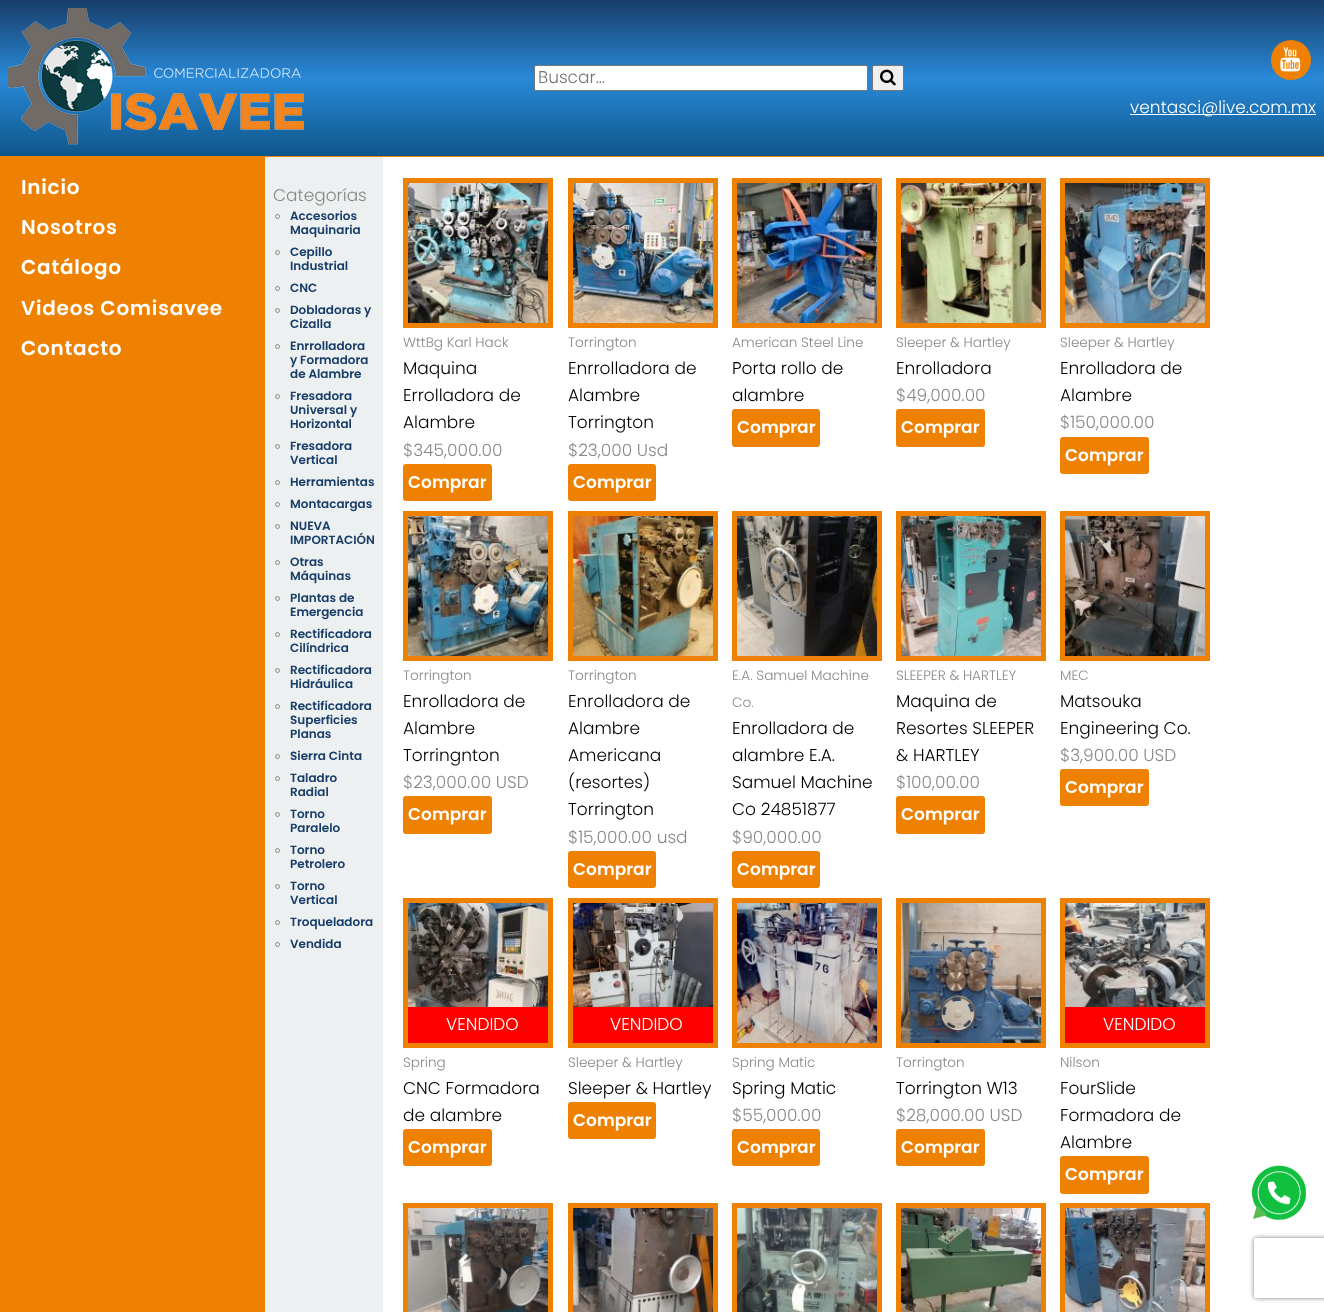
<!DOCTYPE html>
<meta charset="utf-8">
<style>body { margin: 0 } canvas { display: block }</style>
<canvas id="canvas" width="1324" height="1312"></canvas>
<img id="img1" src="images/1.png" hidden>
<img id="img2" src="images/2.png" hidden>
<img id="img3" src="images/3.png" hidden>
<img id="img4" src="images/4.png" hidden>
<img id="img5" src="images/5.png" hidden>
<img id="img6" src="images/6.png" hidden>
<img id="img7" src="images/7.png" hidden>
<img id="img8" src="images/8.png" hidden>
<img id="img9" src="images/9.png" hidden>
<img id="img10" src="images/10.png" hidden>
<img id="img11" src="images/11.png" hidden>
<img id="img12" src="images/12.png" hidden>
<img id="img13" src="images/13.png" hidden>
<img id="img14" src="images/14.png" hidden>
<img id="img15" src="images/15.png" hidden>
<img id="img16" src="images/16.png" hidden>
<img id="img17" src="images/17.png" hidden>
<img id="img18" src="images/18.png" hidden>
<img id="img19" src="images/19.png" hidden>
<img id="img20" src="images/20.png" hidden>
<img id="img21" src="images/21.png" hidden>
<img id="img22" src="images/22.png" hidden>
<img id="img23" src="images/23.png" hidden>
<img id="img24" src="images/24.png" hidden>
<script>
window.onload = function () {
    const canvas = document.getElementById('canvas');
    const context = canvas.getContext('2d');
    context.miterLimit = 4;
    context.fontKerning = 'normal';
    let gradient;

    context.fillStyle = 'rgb(255, 255, 255)';
    context.fillRect(0, 0, 1324, 1312);
    gradient = context.createLinearGradient(662, 0, 662, 156);
    gradient.addColorStop(0, 'rgb(24, 61, 104)');
    gradient.addColorStop(0.5, 'rgb(41, 137, 216)');
    gradient.addColorStop(1, 'rgb(14, 86, 139)');
    context.fillStyle = gradient;
    context.fillRect(0, 0, 1324, 156);
    context.fillStyle = 'rgb(238, 129, 1)';
    context.fillRect(0, 156, 1324, 1);
    context.drawImage(document.getElementById('img1'), 8, 8, 296, 137);
    context.fillStyle = 'rgb(255, 255, 255)';
    context.beginPath();
    context.roundRect(534.5, 65.5, 333, 25, 1.5);
    context.fill();
    context.strokeStyle = 'rgb(118, 118, 118)';
    context.stroke();
    context.fillStyle = 'rgb(239, 239, 239)';
    context.beginPath();
    context.roundRect(872.5, 65.5, 31, 25, 1.5);
    context.fill();
    context.stroke();
    context.drawImage(document.getElementById('img2'), 880, 69, 16, 17);
    context.fillStyle = 'rgb(238, 129, 1)';
    context.beginPath();
    context.arc(1291, 60, 20, 0, 2 * Math.PI);
    context.fill();
    context.fillRect(1271, 60, 40, 1);
    context.drawImage(document.getElementById('img3'), 1280, 47, 21, 25);
    context.fillStyle = 'rgb(255, 255, 255)';
    context.fillRect(1130, 114, 186, 1);
    context.fillStyle = 'rgb(238, 129, 1)';
    context.fillRect(0, 157, 265, 1155);
    context.fillStyle = 'rgb(236, 240, 241)';
    context.fillRect(265, 157, 118, 1155);
    context.beginPath();
    context.arc(277.5, 216.5, 2, 0, 2 * Math.PI);
    context.strokeStyle = 'rgb(136, 136, 136)';
    context.stroke();
    context.beginPath();
    context.arc(277.5, 252.5, 2, 0, 2 * Math.PI);
    context.stroke();
    context.beginPath();
    context.arc(277.5, 288.5, 2, 0, 2 * Math.PI);
    context.stroke();
    context.beginPath();
    context.arc(277.5, 310.5, 2, 0, 2 * Math.PI);
    context.stroke();
    context.beginPath();
    context.arc(277.5, 346.5, 2, 0, 2 * Math.PI);
    context.stroke();
    context.beginPath();
    context.arc(277.5, 396.5, 2, 0, 2 * Math.PI);
    context.stroke();
    context.beginPath();
    context.arc(277.5, 446.5, 2, 0, 2 * Math.PI);
    context.stroke();
    context.beginPath();
    context.arc(277.5, 482.5, 2, 0, 2 * Math.PI);
    context.stroke();
    context.beginPath();
    context.arc(277.5, 504.5, 2, 0, 2 * Math.PI);
    context.stroke();
    context.beginPath();
    context.arc(277.5, 526.5, 2, 0, 2 * Math.PI);
    context.stroke();
    context.beginPath();
    context.arc(277.5, 562.5, 2, 0, 2 * Math.PI);
    context.stroke();
    context.beginPath();
    context.arc(277.5, 598.5, 2, 0, 2 * Math.PI);
    context.stroke();
    context.beginPath();
    context.arc(277.5, 634.5, 2, 0, 2 * Math.PI);
    context.stroke();
    context.beginPath();
    context.arc(277.5, 670.5, 2, 0, 2 * Math.PI);
    context.stroke();
    context.beginPath();
    context.arc(277.5, 706.5, 2, 0, 2 * Math.PI);
    context.stroke();
    context.beginPath();
    context.arc(277.5, 756.5, 2, 0, 2 * Math.PI);
    context.stroke();
    context.beginPath();
    context.arc(277.5, 778.5, 2, 0, 2 * Math.PI);
    context.stroke();
    context.beginPath();
    context.arc(277.5, 814.5, 2, 0, 2 * Math.PI);
    context.stroke();
    context.beginPath();
    context.arc(277.5, 850.5, 2, 0, 2 * Math.PI);
    context.stroke();
    context.beginPath();
    context.arc(277.5, 886.5, 2, 0, 2 * Math.PI);
    context.stroke();
    context.beginPath();
    context.arc(277.5, 922.5, 2, 0, 2 * Math.PI);
    context.stroke();
    context.beginPath();
    context.arc(277.5, 944.5, 2, 0, 2 * Math.PI);
    context.stroke();
    context.strokeStyle = 'rgb(238, 129, 1)';
    context.lineWidth = 5;
    context.strokeRect(405.5, 180.5, 145, 145);
    context.drawImage(document.getElementById('img4'), 408, 183, 140, 140);
    context.fillStyle = 'rgb(238, 129, 1)';
    context.beginPath();
    context.roundRect(403, 464, 89, 37, 3);
    context.fill();
    context.strokeRect(570.5, 180.5, 145, 145);
    context.drawImage(document.getElementById('img5'), 573, 183, 140, 140);
    context.beginPath();
    context.roundRect(568, 464, 88, 37, 3);
    context.fill();
    context.strokeRect(734.5, 180.5, 145, 145);
    context.drawImage(document.getElementById('img6'), 737, 183, 140, 140);
    context.beginPath();
    context.roundRect(732, 409, 88, 38, 3);
    context.fill();
    context.strokeRect(898.5, 180.5, 145, 145);
    context.drawImage(document.getElementById('img7'), 901, 183, 140, 140);
    context.beginPath();
    context.roundRect(896, 409, 89, 38, 3);
    context.fill();
    context.strokeRect(1062.5, 180.5, 145, 145);
    context.drawImage(document.getElementById('img8'), 1065, 183, 140, 140);
    context.beginPath();
    context.roundRect(1060, 437, 89, 37, 3);
    context.fill();
    context.strokeRect(405.5, 513.5, 145, 145);
    context.drawImage(document.getElementById('img9'), 408, 516, 140, 140);
    context.beginPath();
    context.roundRect(403, 796, 89, 38, 3);
    context.fill();
    context.strokeRect(570.5, 513.5, 145, 145);
    context.drawImage(document.getElementById('img10'), 573, 516, 140, 140);
    context.beginPath();
    context.roundRect(568, 851, 88, 37, 3);
    context.fill();
    context.strokeRect(734.5, 513.5, 145, 145);
    context.drawImage(document.getElementById('img11'), 737, 516, 140, 140);
    context.beginPath();
    context.roundRect(732, 851, 88, 37, 3);
    context.fill();
    context.strokeRect(898.5, 513.5, 145, 145);
    context.drawImage(document.getElementById('img12'), 901, 516, 140, 140);
    context.beginPath();
    context.roundRect(896, 796, 89, 38, 3);
    context.fill();
    context.strokeRect(1062.5, 513.5, 145, 145);
    context.drawImage(document.getElementById('img13'), 1065, 516, 140, 140);
    context.beginPath();
    context.roundRect(1060, 769, 89, 37, 3);
    context.fill();
    context.strokeRect(405.5, 900.5, 145, 145);
    context.drawImage(document.getElementById('img14'), 408, 903, 140, 104);
    context.fillStyle = 'rgb(255, 0, 0)';
    context.fillRect(408, 1007, 140, 36);
    context.fillStyle = 'rgb(238, 129, 1)';
    context.beginPath();
    context.roundRect(403, 1129, 89, 37, 3);
    context.fill();
    context.strokeRect(570.5, 900.5, 145, 145);
    context.drawImage(document.getElementById('img15'), 573, 903, 140, 104);
    context.fillStyle = 'rgb(255, 0, 0)';
    context.fillRect(573, 1007, 140, 36);
    context.fillStyle = 'rgb(238, 129, 1)';
    context.beginPath();
    context.roundRect(568, 1102, 88, 37, 3);
    context.fill();
    context.strokeRect(734.5, 900.5, 145, 145);
    context.drawImage(document.getElementById('img16'), 737, 903, 140, 140);
    context.beginPath();
    context.roundRect(732, 1129, 88, 37, 3);
    context.fill();
    context.strokeRect(898.5, 900.5, 145, 145);
    context.drawImage(document.getElementById('img17'), 901, 903, 140, 140);
    context.beginPath();
    context.roundRect(896, 1129, 89, 37, 3);
    context.fill();
    context.strokeRect(1062.5, 900.5, 145, 145);
    context.drawImage(document.getElementById('img18'), 1065, 903, 140, 104);
    context.fillStyle = 'rgb(255, 0, 0)';
    context.fillRect(1065, 1007, 140, 36);
    context.fillStyle = 'rgb(238, 129, 1)';
    context.beginPath();
    context.roundRect(1060, 1156, 89, 38, 3);
    context.fill();
    context.strokeRect(405.5, 1205.5, 145, 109);
    context.drawImage(document.getElementById('img19'), 408, 1208, 140, 104);
    context.strokeRect(570.5, 1205.5, 145, 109);
    context.drawImage(document.getElementById('img20'), 573, 1208, 140, 104);
    context.strokeRect(734.5, 1205.5, 145, 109);
    context.drawImage(document.getElementById('img21'), 737, 1208, 140, 104);
    context.strokeRect(898.5, 1205.5, 145, 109);
    context.drawImage(document.getElementById('img22'), 901, 1208, 140, 104);
    context.strokeRect(1062.5, 1205.5, 145, 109);
    context.drawImage(document.getElementById('img23'), 1065, 1208, 140, 104);
    context.drawImage(document.getElementById('img24'), 1251, 1165, 56, 55);
    context.save();
    context.beginPath();
    context.moveTo(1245, 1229);
    context.lineTo(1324, 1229);
    context.lineTo(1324, 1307);
    context.lineTo(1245, 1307);
    context.closePath();
    context.moveTo(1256, 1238);
    context.lineTo(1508, 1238);
    context.bezierCurveTo(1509, 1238, 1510, 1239, 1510, 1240);
    context.lineTo(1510, 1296);
    context.bezierCurveTo(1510, 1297, 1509, 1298, 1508, 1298);
    context.lineTo(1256, 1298);
    context.bezierCurveTo(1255, 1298, 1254, 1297, 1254, 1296);
    context.lineTo(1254, 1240);
    context.bezierCurveTo(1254, 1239, 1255, 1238, 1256, 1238);
    context.closePath();
    context.clip('evenodd');
    context.fillStyle = 'rgb(128, 128, 128)';
    context.filter = 'blur(2.5px)';
    context.beginPath();
    context.roundRect(1254, 1238, 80, 60, 2);
    context.fill();
    context.filter = 'none';
    context.restore();
    context.font = '300 17px Poppins';
    context.fillStyle = 'rgb(117, 117, 117)';
    context.fillText('Buscar...', 538, 83);
    context.fillStyle = 'rgb(255, 255, 255)';
    context.fillText('ventasci@live.com.mx', 1130, 113);
    context.letterSpacing = '0.75px';
    context.font = '600 20px Poppins';
    context.fillText('Inicio', 21, 194);
    context.fillText('Nosotros', 21, 234);
    context.fillText('Catálogo', 21, 274);
    context.fillText('Videos Comisavee', 21, 315);
    context.fillText('Contacto', 21, 355);
    context.letterSpacing = '0px';
    context.font = '300 17px Poppins';
    context.fillStyle = 'rgb(136, 136, 136)';
    context.fillText('Categorías', 273, 201);
    context.font = '600 12px Poppins';
    context.fillStyle = 'rgb(24, 61, 104)';
    context.fillText('Accesorios', 290, 220);
    context.fillText('Maquinaria', 290, 234);
    context.fillText('Cepillo', 290, 256);
    context.fillText('Industrial', 290, 270);
    context.fillText('CNC', 290, 292);
    context.fillText('Dobladoras y', 290, 314);
    context.fillText('Cizalla', 290, 328);
    context.fillText('Enrrolladora', 290, 350);
    context.fillText('y Formadora', 290, 364);
    context.fillText('de Alambre', 290, 378);
    context.fillText('Fresadora', 290, 400);
    context.fillText('Universal y', 290, 414);
    context.fillText('Horizontal', 290, 428);
    context.fillText('Fresadora', 290, 450);
    context.fillText('Vertical', 290, 464);
    context.fillText('Herramientas', 290, 486);
    context.fillText('Montacargas', 290, 508);
    context.fillText('NUEVA', 290, 530);
    context.fillText('IMPORTACIÓN', 290, 544);
    context.fillText('Otras', 290, 566);
    context.fillText('Máquinas', 290, 580);
    context.fillText('Plantas de', 290, 602);
    context.fillText('Emergencia', 290, 616);
    context.fillText('Rectificadora', 290, 638);
    context.fillText('Cilíndrica', 290, 652);
    context.fillText('Rectificadora', 290, 674);
    context.fillText('Hidráulica', 290, 688);
    context.fillText('Rectificadora', 290, 710);
    context.fillText('Superficies', 290, 724);
    context.fillText('Planas', 290, 738);
    context.fillText('Sierra Cinta', 290, 760);
    context.fillText('Taladro', 290, 782);
    context.fillText('Radial', 290, 796);
    context.fillText('Torno', 290, 818);
    context.fillText('Paralelo', 290, 832);
    context.fillText('Torno', 290, 854);
    context.fillText('Petrolero', 290, 868);
    context.fillText('Torno', 290, 890);
    context.fillText('Vertical', 290, 904);
    context.fillText('Troqueladora', 290, 926);
    context.fillText('Vendida', 290, 948);
    context.font = '300 13.6px Poppins';
    context.fillStyle = 'rgb(136, 136, 136)';
    context.fillText('WttBg Karl Hack', 403, 347);
    context.font = '300 17px Poppins';
    context.fillStyle = 'rgb(0, 0, 0)';
    context.fillText('Maquina', 403, 374);
    context.fillText('Errolladora de', 403, 401);
    context.fillText('Alambre', 403, 428);
    context.fillStyle = 'rgb(136, 136, 136)';
    context.fillText('$345,000.00', 403, 456);
    context.font = '600 17px Poppins';
    context.fillStyle = 'rgb(255, 255, 255)';
    context.fillText('Comprar', 408, 488);
    context.font = '300 13.6px Poppins';
    context.fillStyle = 'rgb(136, 136, 136)';
    context.fillText('Torrington', 568, 347);
    context.font = '300 17px Poppins';
    context.fillStyle = 'rgb(0, 0, 0)';
    context.fillText('Enrrolladora de', 568, 374);
    context.fillText('Alambre', 568, 401);
    context.fillText('Torrington', 568, 428);
    context.fillStyle = 'rgb(136, 136, 136)';
    context.fillText('$23,000 Usd', 568, 456);
    context.font = '600 17px Poppins';
    context.fillStyle = 'rgb(255, 255, 255)';
    context.fillText('Comprar', 573, 488);
    context.font = '300 13.6px Poppins';
    context.fillStyle = 'rgb(136, 136, 136)';
    context.fillText('American Steel Line', 732, 347);
    context.font = '300 17px Poppins';
    context.fillStyle = 'rgb(0, 0, 0)';
    context.fillText('Porta rollo de', 732, 374);
    context.fillText('alambre', 732, 401);
    context.font = '600 17px Poppins';
    context.fillStyle = 'rgb(255, 255, 255)';
    context.fillText('Comprar', 737, 433);
    context.font = '300 13.6px Poppins';
    context.fillStyle = 'rgb(136, 136, 136)';
    context.fillText('Sleeper & Hartley', 896, 347);
    context.font = '300 17px Poppins';
    context.fillStyle = 'rgb(0, 0, 0)';
    context.fillText('Enrolladora', 896, 374);
    context.fillStyle = 'rgb(136, 136, 136)';
    context.fillText('$49,000.00', 896, 401);
    context.font = '600 17px Poppins';
    context.fillStyle = 'rgb(255, 255, 255)';
    context.fillText('Comprar', 901, 433);
    context.font = '300 13.6px Poppins';
    context.fillStyle = 'rgb(136, 136, 136)';
    context.fillText('Sleeper & Hartley', 1060, 347);
    context.font = '300 17px Poppins';
    context.fillStyle = 'rgb(0, 0, 0)';
    context.fillText('Enrolladora de', 1060, 374);
    context.fillText('Alambre', 1060, 401);
    context.fillStyle = 'rgb(136, 136, 136)';
    context.fillText('$150,000.00', 1060, 428);
    context.font = '600 17px Poppins';
    context.fillStyle = 'rgb(255, 255, 255)';
    context.fillText('Comprar', 1065, 461);
    context.font = '300 13.6px Poppins';
    context.fillStyle = 'rgb(136, 136, 136)';
    context.fillText('Torrington', 403, 680);
    context.font = '300 17px Poppins';
    context.fillStyle = 'rgb(0, 0, 0)';
    context.fillText('Enrolladora de', 403, 707);
    context.fillText('Alambre', 403, 734);
    context.fillText('Torringnton', 403, 761);
    context.fillStyle = 'rgb(136, 136, 136)';
    context.fillText('$23,000.00 USD', 403, 788);
    context.font = '600 17px Poppins';
    context.fillStyle = 'rgb(255, 255, 255)';
    context.fillText('Comprar', 408, 820);
    context.font = '300 13.6px Poppins';
    context.fillStyle = 'rgb(136, 136, 136)';
    context.fillText('Torrington', 568, 680);
    context.font = '300 17px Poppins';
    context.fillStyle = 'rgb(0, 0, 0)';
    context.fillText('Enrolladora de', 568, 707);
    context.fillText('Alambre', 568, 734);
    context.fillText('Americana', 568, 761);
    context.fillText('(resortes)', 568, 788);
    context.fillText('Torrington', 568, 815);
    context.fillStyle = 'rgb(136, 136, 136)';
    context.fillText('$15,000.00 usd', 568, 843);
    context.font = '600 17px Poppins';
    context.fillStyle = 'rgb(255, 255, 255)';
    context.fillText('Comprar', 573, 875);
    context.font = '300 13.6px Poppins';
    context.fillStyle = 'rgb(136, 136, 136)';
    context.fillText('E.A. Samuel Machine', 732, 680);
    context.fillText('Co.', 732, 707);
    context.font = '300 17px Poppins';
    context.fillStyle = 'rgb(0, 0, 0)';
    context.fillText('Enrolladora de', 732, 734);
    context.fillText('alambre E.A.', 732, 761);
    context.fillText('Samuel Machine', 732, 788);
    context.fillText('Co 24851877', 732, 815);
    context.fillStyle = 'rgb(136, 136, 136)';
    context.fillText('$90,000.00', 732, 843);
    context.font = '600 17px Poppins';
    context.fillStyle = 'rgb(255, 255, 255)';
    context.fillText('Comprar', 737, 875);
    context.font = '300 13.6px Poppins';
    context.fillStyle = 'rgb(136, 136, 136)';
    context.fillText('SLEEPER & HARTLEY', 896, 680);
    context.font = '300 17px Poppins';
    context.fillStyle = 'rgb(0, 0, 0)';
    context.fillText('Maquina de', 896, 707);
    context.fillText('Resortes SLEEPER', 896, 734);
    context.fillText('& HARTLEY', 896, 761);
    context.fillStyle = 'rgb(136, 136, 136)';
    context.fillText('$100,00.00', 896, 788);
    context.font = '600 17px Poppins';
    context.fillStyle = 'rgb(255, 255, 255)';
    context.fillText('Comprar', 901, 820);
    context.font = '300 13.6px Poppins';
    context.fillStyle = 'rgb(136, 136, 136)';
    context.fillText('MEC', 1060, 680);
    context.font = '300 17px Poppins';
    context.fillStyle = 'rgb(0, 0, 0)';
    context.fillText('Matsouka', 1060, 707);
    context.fillText('Engineering Co.', 1060, 734);
    context.fillStyle = 'rgb(136, 136, 136)';
    context.fillText('$3,900.00 USD', 1060, 761);
    context.font = '600 17px Poppins';
    context.fillStyle = 'rgb(255, 255, 255)';
    context.fillText('Comprar', 1065, 793);
    context.font = '300 17px Poppins';
    context.fillText('VENDIDO', 446, 1030);
    context.font = '300 13.6px Poppins';
    context.fillStyle = 'rgb(136, 136, 136)';
    context.fillText('Spring', 403, 1067);
    context.font = '300 17px Poppins';
    context.fillStyle = 'rgb(0, 0, 0)';
    context.fillText('CNC Formadora', 403, 1094);
    context.fillText('de alambre', 403, 1121);
    context.font = '600 17px Poppins';
    context.fillStyle = 'rgb(255, 255, 255)';
    context.fillText('Comprar', 408, 1153);
    context.font = '300 17px Poppins';
    context.fillText('VENDIDO', 610, 1030);
    context.font = '300 13.6px Poppins';
    context.fillStyle = 'rgb(136, 136, 136)';
    context.fillText('Sleeper & Hartley', 568, 1067);
    context.font = '300 17px Poppins';
    context.fillStyle = 'rgb(0, 0, 0)';
    context.fillText('Sleeper & Hartley', 568, 1094);
    context.font = '600 17px Poppins';
    context.fillStyle = 'rgb(255, 255, 255)';
    context.fillText('Comprar', 573, 1126);
    context.font = '300 13.6px Poppins';
    context.fillStyle = 'rgb(136, 136, 136)';
    context.fillText('Spring Matic', 732, 1067);
    context.font = '300 17px Poppins';
    context.fillStyle = 'rgb(0, 0, 0)';
    context.fillText('Spring Matic', 732, 1094);
    context.fillStyle = 'rgb(136, 136, 136)';
    context.fillText('$55,000.00', 732, 1121);
    context.font = '600 17px Poppins';
    context.fillStyle = 'rgb(255, 255, 255)';
    context.fillText('Comprar', 737, 1153);
    context.font = '300 13.6px Poppins';
    context.fillStyle = 'rgb(136, 136, 136)';
    context.fillText('Torrington', 896, 1067);
    context.font = '300 17px Poppins';
    context.fillStyle = 'rgb(0, 0, 0)';
    context.fillText('Torrington W13', 896, 1094);
    context.fillStyle = 'rgb(136, 136, 136)';
    context.fillText('$28,000.00 USD', 896, 1121);
    context.font = '600 17px Poppins';
    context.fillStyle = 'rgb(255, 255, 255)';
    context.fillText('Comprar', 901, 1153);
    context.font = '300 17px Poppins';
    context.fillText('VENDIDO', 1103, 1030);
    context.font = '300 13.6px Poppins';
    context.fillStyle = 'rgb(136, 136, 136)';
    context.fillText('Nilson', 1060, 1067);
    context.font = '300 17px Poppins';
    context.fillStyle = 'rgb(0, 0, 0)';
    context.fillText('FourSlide', 1060, 1094);
    context.fillText('Formadora de', 1060, 1121);
    context.fillText('Alambre', 1060, 1148);
    context.font = '600 17px Poppins';
    context.fillStyle = 'rgb(255, 255, 255)';
    context.fillText('Comprar', 1065, 1180);
};
</script>
